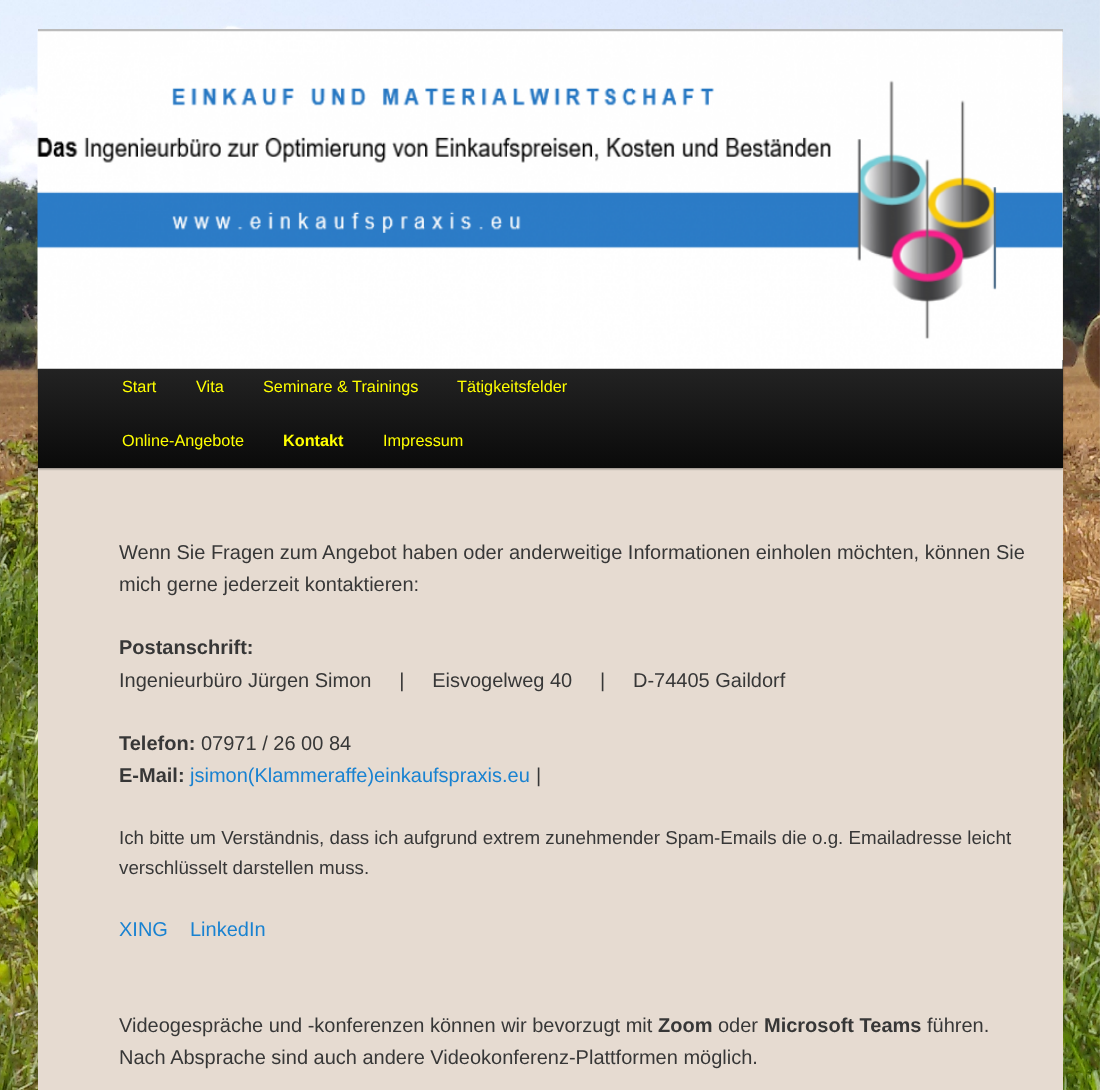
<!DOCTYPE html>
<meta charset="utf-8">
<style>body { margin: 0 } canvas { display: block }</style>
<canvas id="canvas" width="1100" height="1090"></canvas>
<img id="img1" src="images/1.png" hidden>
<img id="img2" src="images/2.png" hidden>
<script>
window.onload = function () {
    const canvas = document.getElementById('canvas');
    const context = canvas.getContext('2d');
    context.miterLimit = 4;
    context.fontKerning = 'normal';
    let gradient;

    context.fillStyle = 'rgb(255, 255, 255)';
    context.fillRect(0, 0, 1100, 1090);
    context.drawImage(document.getElementById('img1'), 0, 0, 1100, 1090);
    context.fillStyle = 'rgb(230, 219, 209)';
    context.beginPath();
    context.roundRect(38, 29, 1025, 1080, 19);
    context.fill();
    context.fillStyle = 'rgb(187, 187, 187)';
    context.fillRect(38, 29, 1025, 3);
    context.fillStyle = 'rgba(0, 0, 0, 0.4)';
    context.filter = 'blur(1px)';
    context.beginPath();
    context.rect(38, 361, 1025, 108);
    context.fill();
    context.filter = 'none';
    gradient = context.createLinearGradient(550, 360, 550, 468);
    gradient.addColorStop(0, 'rgb(37, 37, 37)');
    gradient.addColorStop(1, 'rgb(10, 10, 10)');
    context.fillStyle = gradient;
    context.fillRect(38, 360, 1025, 108);
    context.drawImage(document.getElementById('img2'), 37, 31, 1026, 338);
    context.font = '16.25px Liberation Sans';
    context.fillStyle = 'rgb(255, 255, 0)';
    context.fillText('Start', 122, 392);
    context.fillText('Vita', 196, 392);
    context.fillText('Seminare & Trainings', 263, 392);
    context.fillText('Tätigkeitsfelder', 457, 392);
    context.fillText('Online-Angebote', 122, 446);
    context.font = 'bold 16.25px Liberation Sans';
    context.fillText('Kontakt', 283, 446);
    context.font = '16.25px Liberation Sans';
    context.fillText('Impressum', 383, 446);
    context.font = '20px Liberation Sans';
    context.fillStyle = 'rgb(55, 55, 55)';
    context.fillText('Wenn Sie Fragen zum Angebot haben oder anderweitige Informationen einholen möchten, können Sie', 119, 559);
    context.fillText('mich gerne jederzeit kontaktieren:', 119, 591);
    context.font = 'bold 20px Liberation Sans';
    context.fillText('Postanschrift:', 119, 654);
    context.font = '20px Liberation Sans';
    context.fillText('Ingenieurbüro Jürgen Simon     |     Eisvogelweg 40     |     D-74405 Gaildorf', 119, 687);
    context.font = 'bold 20px Liberation Sans';
    context.fillText('Telefon:', 119, 750);
    context.font = '20px Liberation Sans';
    context.fillText('07971 / 26 00 84', 201, 750);
    context.font = 'bold 20px Liberation Sans';
    context.fillText('E-Mail:', 119, 782);
    context.font = '20px Liberation Sans';
    context.fillStyle = 'rgb(25, 130, 209)';
    context.fillText('jsimon(Klammeraffe)einkaufspraxis.eu', 190, 782);
    context.fillStyle = 'rgb(55, 55, 55)';
    context.fillText('|', 536, 782);
    context.font = '18.75px Liberation Sans';
    context.fillText('Ich bitte um Verständnis, dass ich aufgrund extrem zunehmender Spam-Emails die o.g. Emailadresse leicht', 119, 844);
    context.fillText('verschlüsselt darstellen muss.', 119, 874);
    context.font = '20px Liberation Sans';
    context.fillStyle = 'rgb(25, 130, 209)';
    context.fillText('XING', 119, 936);
    context.fillText('LinkedIn', 190, 936);
    context.fillStyle = 'rgb(55, 55, 55)';
    context.fillText('Videogespräche und -konferenzen können wir bevorzugt mit', 119, 1032);
    context.font = 'bold 20px Liberation Sans';
    context.fillText('Zoom', 658, 1032);
    context.font = '20px Liberation Sans';
    context.fillText('oder', 718, 1032);
    context.font = 'bold 20px Liberation Sans';
    context.fillText('Microsoft Teams', 764, 1032);
    context.font = '20px Liberation Sans';
    context.fillText('führen.', 927, 1032);
    context.fillText('Nach Absprache sind auch andere Videokonferenz-Plattformen möglich.', 119, 1064);
};
</script>
